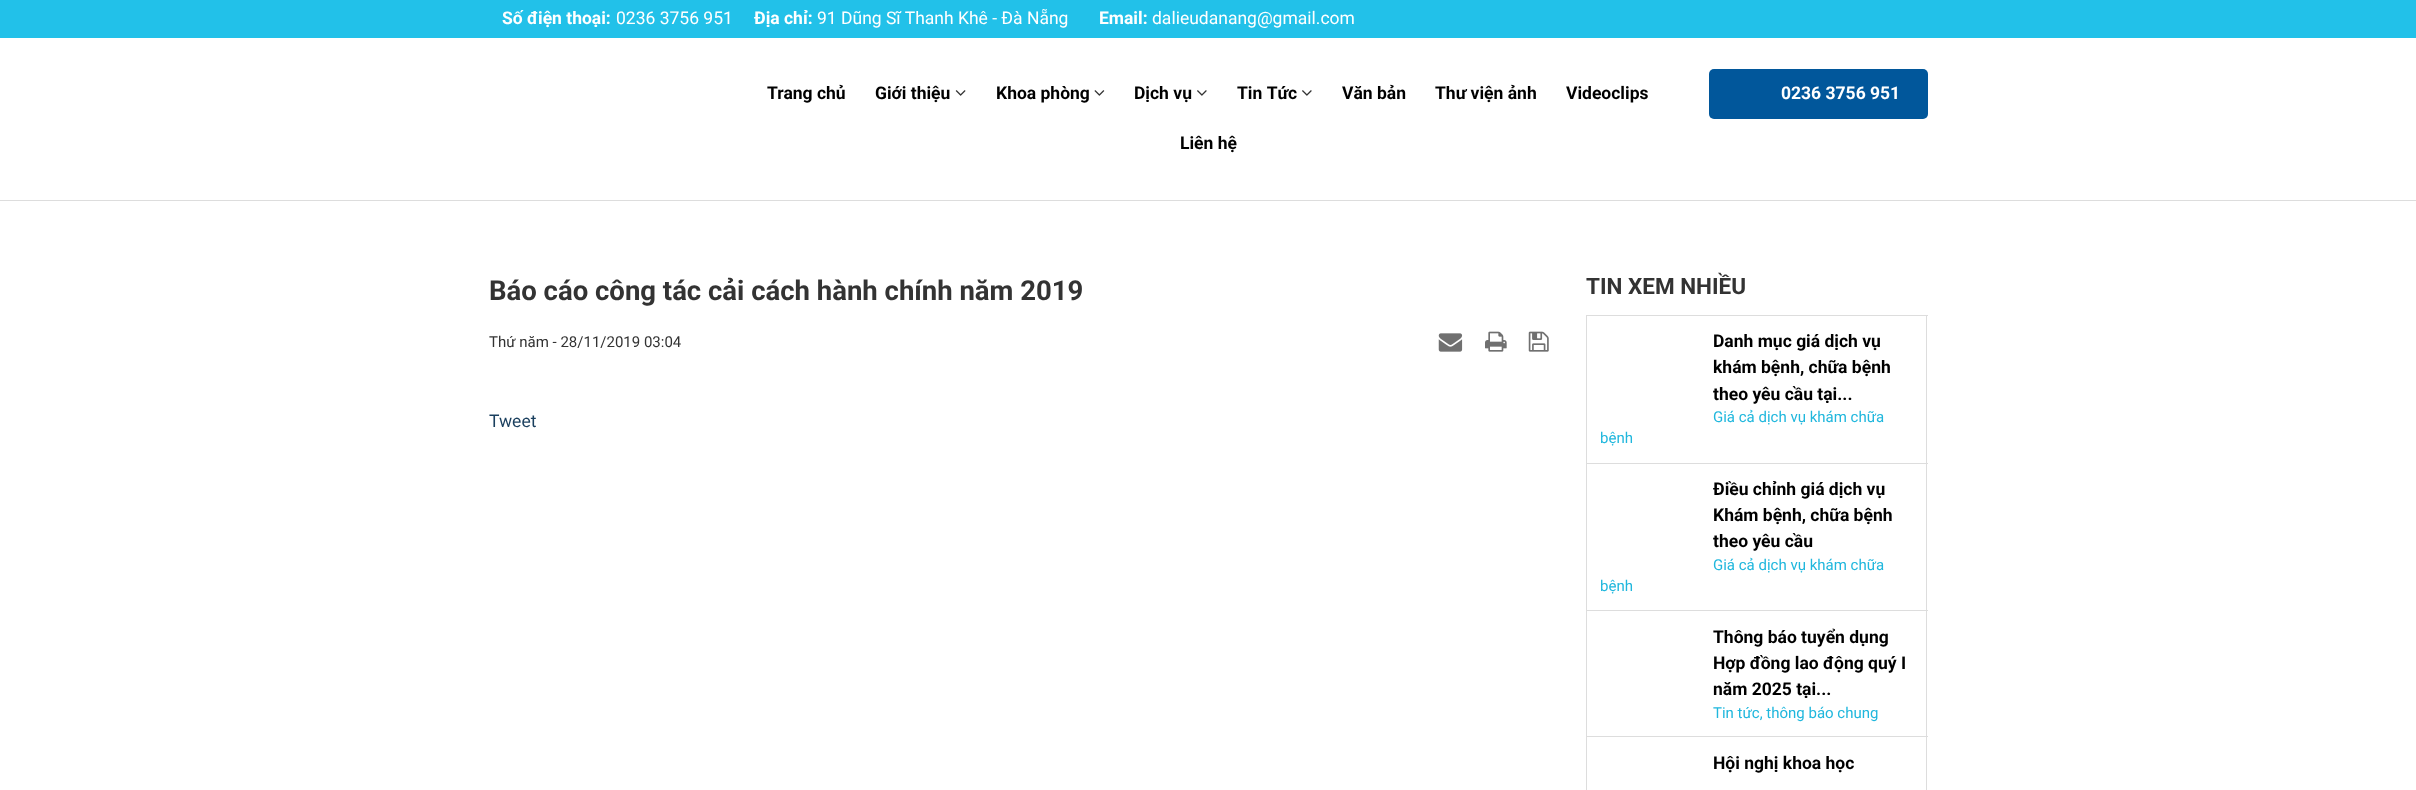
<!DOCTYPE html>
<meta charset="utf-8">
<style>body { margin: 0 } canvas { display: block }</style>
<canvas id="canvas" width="2416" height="790"></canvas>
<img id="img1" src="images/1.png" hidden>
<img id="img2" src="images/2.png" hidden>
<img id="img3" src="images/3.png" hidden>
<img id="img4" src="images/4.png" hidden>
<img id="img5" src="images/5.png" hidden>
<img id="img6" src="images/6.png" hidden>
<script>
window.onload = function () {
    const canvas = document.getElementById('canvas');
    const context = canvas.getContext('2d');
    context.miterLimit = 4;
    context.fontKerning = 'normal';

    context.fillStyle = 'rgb(255, 255, 255)';
    context.fillRect(0, 0, 2416, 790);
    context.fillStyle = 'rgb(34, 193, 233)';
    context.fillRect(0, 0, 2416, 38);
    context.fillStyle = 'rgb(221, 221, 221)';
    context.fillRect(0, 200, 2416, 1);
    context.drawImage(document.getElementById('img1'), 955, 90, 11, 6);
    context.drawImage(document.getElementById('img2'), 1094, 90, 11, 6);
    context.drawImage(document.getElementById('img3'), 1197, 90, 10, 6);
    context.drawImage(document.getElementById('img3'), 1302, 90, 10, 6);
    context.fillStyle = 'rgb(1, 87, 155)';
    context.beginPath();
    context.roundRect(1709, 69, 219, 50, 5);
    context.fill();
    context.drawImage(document.getElementById('img4'), 1438, 333, 25, 19);
    context.drawImage(document.getElementById('img5'), 1485, 331, 22, 21);
    context.drawImage(document.getElementById('img6'), 1528, 331, 21, 21);
    context.fillStyle = 'rgb(221, 221, 221)';
    context.fillRect(1586, 315, 342, 1);
    context.fillRect(1926, 315, 1, 148);
    context.fillRect(1586, 315, 1, 148);
    context.fillRect(1586, 463, 342, 1);
    context.fillRect(1926, 463, 1, 147);
    context.fillRect(1586, 463, 1, 147);
    context.fillRect(1586, 610, 342, 1);
    context.fillRect(1926, 610, 1, 126);
    context.fillRect(1586, 610, 1, 126);
    context.fillRect(1586, 736, 342, 1);
    context.fillRect(1926, 736, 1, 54);
    context.fillRect(1586, 736, 1, 54);
    context.font = 'bold 17.5px Roboto';
    context.fillStyle = 'rgb(255, 255, 255)';
    context.fillText('Số điện thoại:', 502, 24);
    context.font = '17.5px Roboto';
    context.fillText('0236 3756 951', 616, 24);
    context.font = 'bold 17.5px Roboto';
    context.fillText('Địa chỉ:', 754, 24);
    context.font = '17.5px Roboto';
    context.fillText('91 Dũng Sĩ Thanh Khê - Đà Nẵng', 817, 24);
    context.font = 'bold 17.5px Roboto';
    context.fillText('Email:', 1099, 24);
    context.font = '17.5px Roboto';
    context.fillText('dalieudanang@gmail.com', 1152, 24);
    context.font = 'bold 17.5px Roboto';
    context.fillStyle = 'rgb(0, 0, 0)';
    context.fillText('Trang chủ', 767, 99);
    context.fillText('Giới thiệu', 875, 99);
    context.fillText('Khoa phòng', 996, 99);
    context.fillText('Dịch vụ', 1134, 99);
    context.fillText('Tin Tức', 1237, 99);
    context.fillText('Văn bản', 1342, 99);
    context.fillText('Thư viện ảnh', 1435, 99);
    context.fillText('Videoclips', 1566, 99);
    context.fillText('Liên hệ', 1180, 149);
    context.fillStyle = 'rgb(255, 255, 255)';
    context.fillText('0236 3756 951', 1781, 99);
    context.font = 'bold 27.5px Roboto';
    context.fillStyle = 'rgb(51, 51, 51)';
    context.fillText('Báo cáo công tác cải cách hành chính năm 2019', 489, 300);
    context.font = '15px Roboto';
    context.fillText('Thứ năm - 28/11/2019 03:04', 489, 347);
    context.font = '17.5px Roboto';
    context.fillStyle = 'rgb(26, 63, 94)';
    context.fillText('Tweet', 489, 427);
    context.font = 'bold 22.5px Roboto';
    context.fillStyle = 'rgb(51, 51, 51)';
    context.fillText('TIN XEM NHIỀU', 1586, 294);
    context.font = 'bold 17.5px Roboto';
    context.fillStyle = 'rgb(0, 0, 0)';
    context.fillText('Danh mục giá dịch vụ', 1713, 347);
    context.fillText('khám bệnh, chữa bệnh', 1713, 373);
    context.fillText('theo yêu cầu tại...', 1713, 400);
    context.font = '15px Roboto';
    context.fillStyle = 'rgb(32, 183, 221)';
    context.fillText('Giá cả dịch vụ khám chữa', 1713, 422);
    context.fillText('bệnh', 1600, 443);
    context.font = 'bold 17.5px Roboto';
    context.fillStyle = 'rgb(0, 0, 0)';
    context.fillText('Điều chỉnh giá dịch vụ', 1713, 495);
    context.fillText('Khám bệnh, chữa bệnh', 1713, 521);
    context.fillText('theo yêu cầu', 1713, 547);
    context.font = '15px Roboto';
    context.fillStyle = 'rgb(32, 183, 221)';
    context.fillText('Giá cả dịch vụ khám chữa', 1713, 570);
    context.fillText('bệnh', 1600, 591);
    context.font = 'bold 17.5px Roboto';
    context.fillStyle = 'rgb(0, 0, 0)';
    context.fillText('Thông báo tuyển dụng', 1713, 643);
    context.fillText('Hợp đồng lao động quý I', 1713, 669);
    context.fillText('năm 2025 tại...', 1713, 695);
    context.font = '15px Roboto';
    context.fillStyle = 'rgb(32, 183, 221)';
    context.fillText('Tin tức, thông báo chung', 1713, 718);
    context.font = 'bold 17.5px Roboto';
    context.fillStyle = 'rgb(0, 0, 0)';
    context.fillText('Hội nghị khoa học', 1713, 769);
};
</script>
